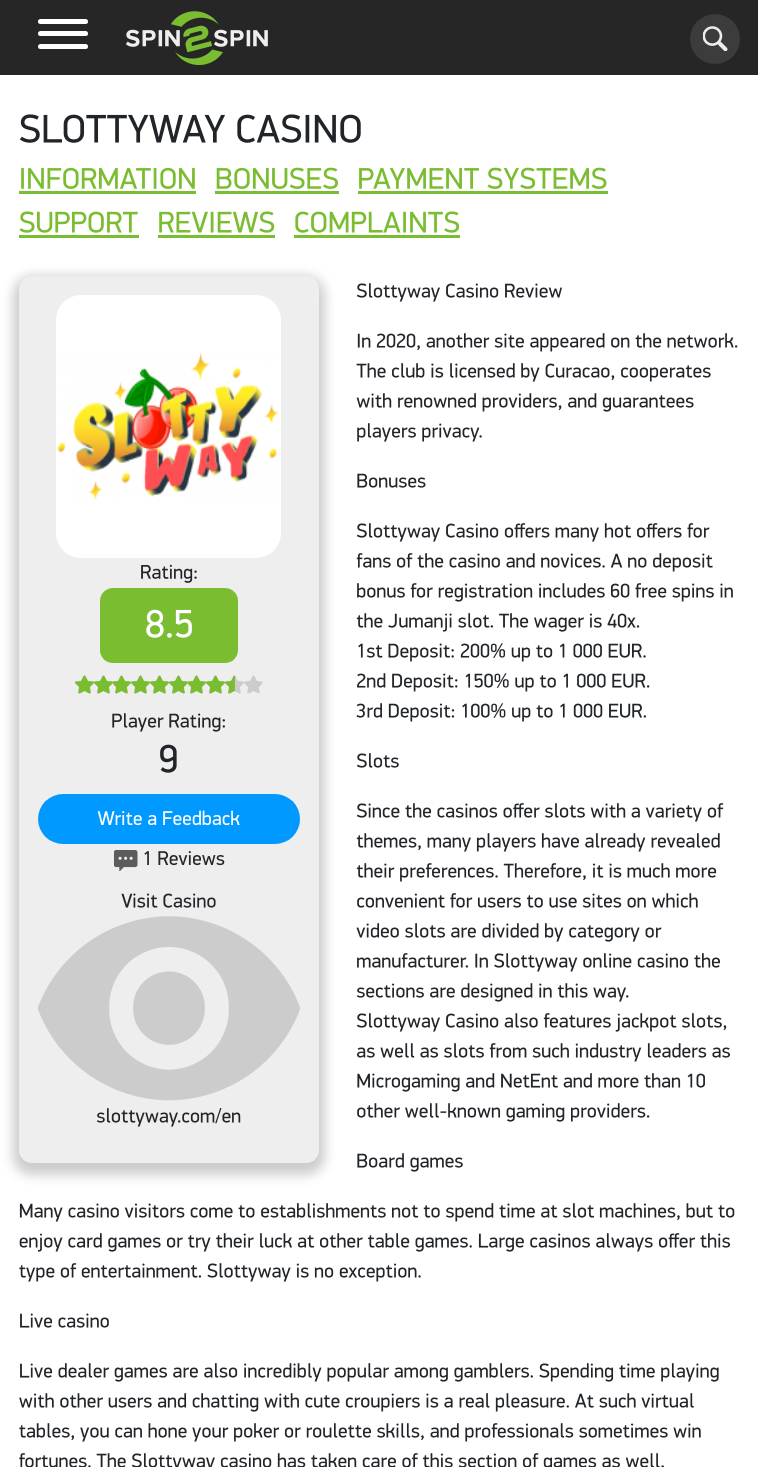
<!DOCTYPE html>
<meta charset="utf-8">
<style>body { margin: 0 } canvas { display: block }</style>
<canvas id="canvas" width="758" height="1467"></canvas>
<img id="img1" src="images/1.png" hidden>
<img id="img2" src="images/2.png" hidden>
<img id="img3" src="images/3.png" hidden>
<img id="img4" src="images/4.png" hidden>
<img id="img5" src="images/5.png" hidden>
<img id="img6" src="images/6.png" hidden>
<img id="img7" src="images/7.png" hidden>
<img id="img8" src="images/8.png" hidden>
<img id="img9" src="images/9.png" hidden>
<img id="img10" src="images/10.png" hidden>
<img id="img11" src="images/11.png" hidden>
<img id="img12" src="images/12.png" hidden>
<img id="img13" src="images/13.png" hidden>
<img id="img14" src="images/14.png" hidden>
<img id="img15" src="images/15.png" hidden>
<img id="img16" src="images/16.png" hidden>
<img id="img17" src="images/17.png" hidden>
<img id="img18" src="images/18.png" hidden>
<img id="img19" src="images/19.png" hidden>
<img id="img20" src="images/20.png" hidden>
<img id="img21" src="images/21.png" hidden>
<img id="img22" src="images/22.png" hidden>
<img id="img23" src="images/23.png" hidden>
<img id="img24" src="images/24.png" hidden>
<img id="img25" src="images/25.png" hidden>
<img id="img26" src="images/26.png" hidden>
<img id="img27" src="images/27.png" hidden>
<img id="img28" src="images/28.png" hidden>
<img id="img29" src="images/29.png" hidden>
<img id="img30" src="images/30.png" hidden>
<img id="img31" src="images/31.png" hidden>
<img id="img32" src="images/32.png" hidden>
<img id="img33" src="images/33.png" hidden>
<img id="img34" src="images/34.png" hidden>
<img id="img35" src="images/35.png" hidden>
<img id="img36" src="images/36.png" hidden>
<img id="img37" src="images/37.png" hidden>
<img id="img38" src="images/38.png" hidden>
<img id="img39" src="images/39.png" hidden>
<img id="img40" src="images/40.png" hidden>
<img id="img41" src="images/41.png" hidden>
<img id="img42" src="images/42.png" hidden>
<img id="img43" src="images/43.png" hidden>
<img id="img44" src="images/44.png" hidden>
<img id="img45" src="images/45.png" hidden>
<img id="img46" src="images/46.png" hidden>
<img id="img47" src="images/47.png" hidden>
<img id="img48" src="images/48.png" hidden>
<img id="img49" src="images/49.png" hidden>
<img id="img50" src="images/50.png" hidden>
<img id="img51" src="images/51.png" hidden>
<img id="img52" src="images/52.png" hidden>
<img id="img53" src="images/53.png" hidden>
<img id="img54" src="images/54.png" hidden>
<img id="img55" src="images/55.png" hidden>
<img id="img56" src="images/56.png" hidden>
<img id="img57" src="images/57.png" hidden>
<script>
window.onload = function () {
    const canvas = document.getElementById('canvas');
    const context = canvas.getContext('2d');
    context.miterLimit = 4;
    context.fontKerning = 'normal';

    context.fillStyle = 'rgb(255, 255, 255)';
    context.fillRect(0, 0, 758, 1467);
    context.fillStyle = 'rgb(38, 38, 38)';
    context.fillRect(0, 0, 758, 75);
    context.fillStyle = 'rgb(255, 255, 255)';
    context.beginPath();
    context.roundRect(38, 31, 50, 5, 2.5);
    context.fill();
    context.beginPath();
    context.roundRect(38, 19, 50, 5, 2.5);
    context.fill();
    context.beginPath();
    context.roundRect(38, 44, 50, 5, 2.5);
    context.fill();
    context.drawImage(document.getElementById('img1'), 126, 11, 142, 54);
    context.fillStyle = 'rgb(60, 60, 60)';
    context.beginPath();
    context.arc(715, 39, 25, 0, 2 * Math.PI);
    context.fill();
    context.drawImage(document.getElementById('img2'), 703, 26, 25, 25);
    context.drawImage(document.getElementById('img3'), 19, 114, 342, 29);
    context.drawImage(document.getElementById('img4'), 21, 167, 174, 22);
    context.fillStyle = 'rgb(122, 189, 49)';
    context.fillRect(19, 191, 177, 3);
    context.drawImage(document.getElementById('img5'), 216, 167, 122, 22);
    context.fillRect(215, 191, 124, 3);
    context.drawImage(document.getElementById('img6'), 359, 167, 248, 22);
    context.fillRect(358, 191, 250, 3);
    context.drawImage(document.getElementById('img7'), 19, 211, 119, 22);
    context.fillRect(19, 235, 120, 3);
    context.drawImage(document.getElementById('img8'), 159, 211, 116, 22);
    context.fillRect(158, 235, 117, 3);
    context.drawImage(document.getElementById('img9'), 295, 211, 165, 22);
    context.fillRect(294, 235, 166, 3);
    context.fillStyle = 'rgba(0, 0, 0, 0.2)';
    context.filter = 'blur(6px)';
    context.beginPath();
    context.roundRect(13, 276, 312, 899, 19);
    context.fill();
    context.filter = 'none';
    context.fillStyle = 'rgb(238, 238, 238)';
    context.beginPath();
    context.roundRect(19, 276, 300, 887, 13);
    context.fill();
    context.fillStyle = 'rgb(255, 255, 255)';
    context.beginPath();
    context.roundRect(56, 295, 225, 263, 25);
    context.fill();
    context.drawImage(document.getElementById('img10'), 57, 350, 222, 153);
    context.drawImage(document.getElementById('img11'), 141, 564, 56, 19);
    context.fillStyle = 'rgb(122, 189, 49)';
    context.beginPath();
    context.roundRect(100, 588, 138, 75, 13);
    context.fill();
    context.drawImage(document.getElementById('img12'), 146, 609, 46, 29);
    context.drawImage(document.getElementById('img13'), 75, 675, 188, 19);
    context.drawImage(document.getElementById('img14'), 75, 675, 160, 19);
    context.drawImage(document.getElementById('img15'), 112, 713, 113, 19);
    context.drawImage(document.getElementById('img16'), 160, 744, 17, 29);
    context.fillStyle = 'rgb(0, 153, 255)';
    context.beginPath();
    context.roundRect(38, 794, 262, 50, 25);
    context.fill();
    context.drawImage(document.getElementById('img17'), 97, 810, 143, 16);
    context.drawImage(document.getElementById('img18'), 114, 850, 24, 21);
    context.drawImage(document.getElementById('img19'), 144, 851, 5, 14);
    context.drawImage(document.getElementById('img20'), 158, 851, 67, 15);
    context.drawImage(document.getElementById('img21'), 121, 893, 95, 15);
    context.drawImage(document.getElementById('img22'), 38, 916, 262, 185);
    context.drawImage(document.getElementById('img23'), 96, 1108, 145, 19);
    context.drawImage(document.getElementById('img24'), 356, 283, 206, 19);
    context.drawImage(document.getElementById('img25'), 357, 333, 381, 19);
    context.drawImage(document.getElementById('img26'), 356, 363, 355, 19);
    context.drawImage(document.getElementById('img27'), 356, 393, 338, 19);
    context.drawImage(document.getElementById('img28'), 357, 423, 125, 19);
    context.drawImage(document.getElementById('img29'), 357, 473, 69, 15);
    context.drawImage(document.getElementById('img30'), 356, 523, 354, 19);
    context.drawImage(document.getElementById('img31'), 356, 553, 357, 19);
    context.drawImage(document.getElementById('img32'), 357, 583, 376, 19);
    context.drawImage(document.getElementById('img33'), 356, 613, 284, 19);
    context.drawImage(document.getElementById('img34'), 358, 643, 288, 19);
    context.drawImage(document.getElementById('img35'), 357, 673, 293, 19);
    context.drawImage(document.getElementById('img36'), 356, 703, 290, 19);
    context.drawImage(document.getElementById('img37'), 356, 753, 43, 15);
    context.drawImage(document.getElementById('img38'), 356, 803, 368, 19);
    context.drawImage(document.getElementById('img39'), 356, 833, 364, 19);
    context.drawImage(document.getElementById('img40'), 356, 863, 361, 19);
    context.drawImage(document.getElementById('img41'), 357, 893, 341, 15);
    context.drawImage(document.getElementById('img42'), 356, 923, 306, 19);
    context.drawImage(document.getElementById('img43'), 357, 953, 363, 19);
    context.drawImage(document.getElementById('img44'), 356, 983, 273, 19);
    context.drawImage(document.getElementById('img45'), 356, 1013, 371, 19);
    context.drawImage(document.getElementById('img46'), 357, 1043, 373, 19);
    context.drawImage(document.getElementById('img47'), 357, 1073, 348, 19);
    context.drawImage(document.getElementById('img48'), 357, 1103, 293, 19);
    context.drawImage(document.getElementById('img49'), 357, 1153, 106, 19);
    context.drawImage(document.getElementById('img50'), 19, 1203, 716, 19);
    context.drawImage(document.getElementById('img51'), 19, 1233, 712, 19);
    context.drawImage(document.getElementById('img52'), 19, 1263, 402, 19);
    context.drawImage(document.getElementById('img53'), 20, 1313, 89, 15);
    context.drawImage(document.getElementById('img54'), 20, 1363, 699, 19);
    context.drawImage(document.getElementById('img55'), 19, 1393, 675, 19);
    context.drawImage(document.getElementById('img56'), 19, 1423, 682, 19);
    context.drawImage(document.getElementById('img57'), 19, 1453, 645, 14);
};
</script>
